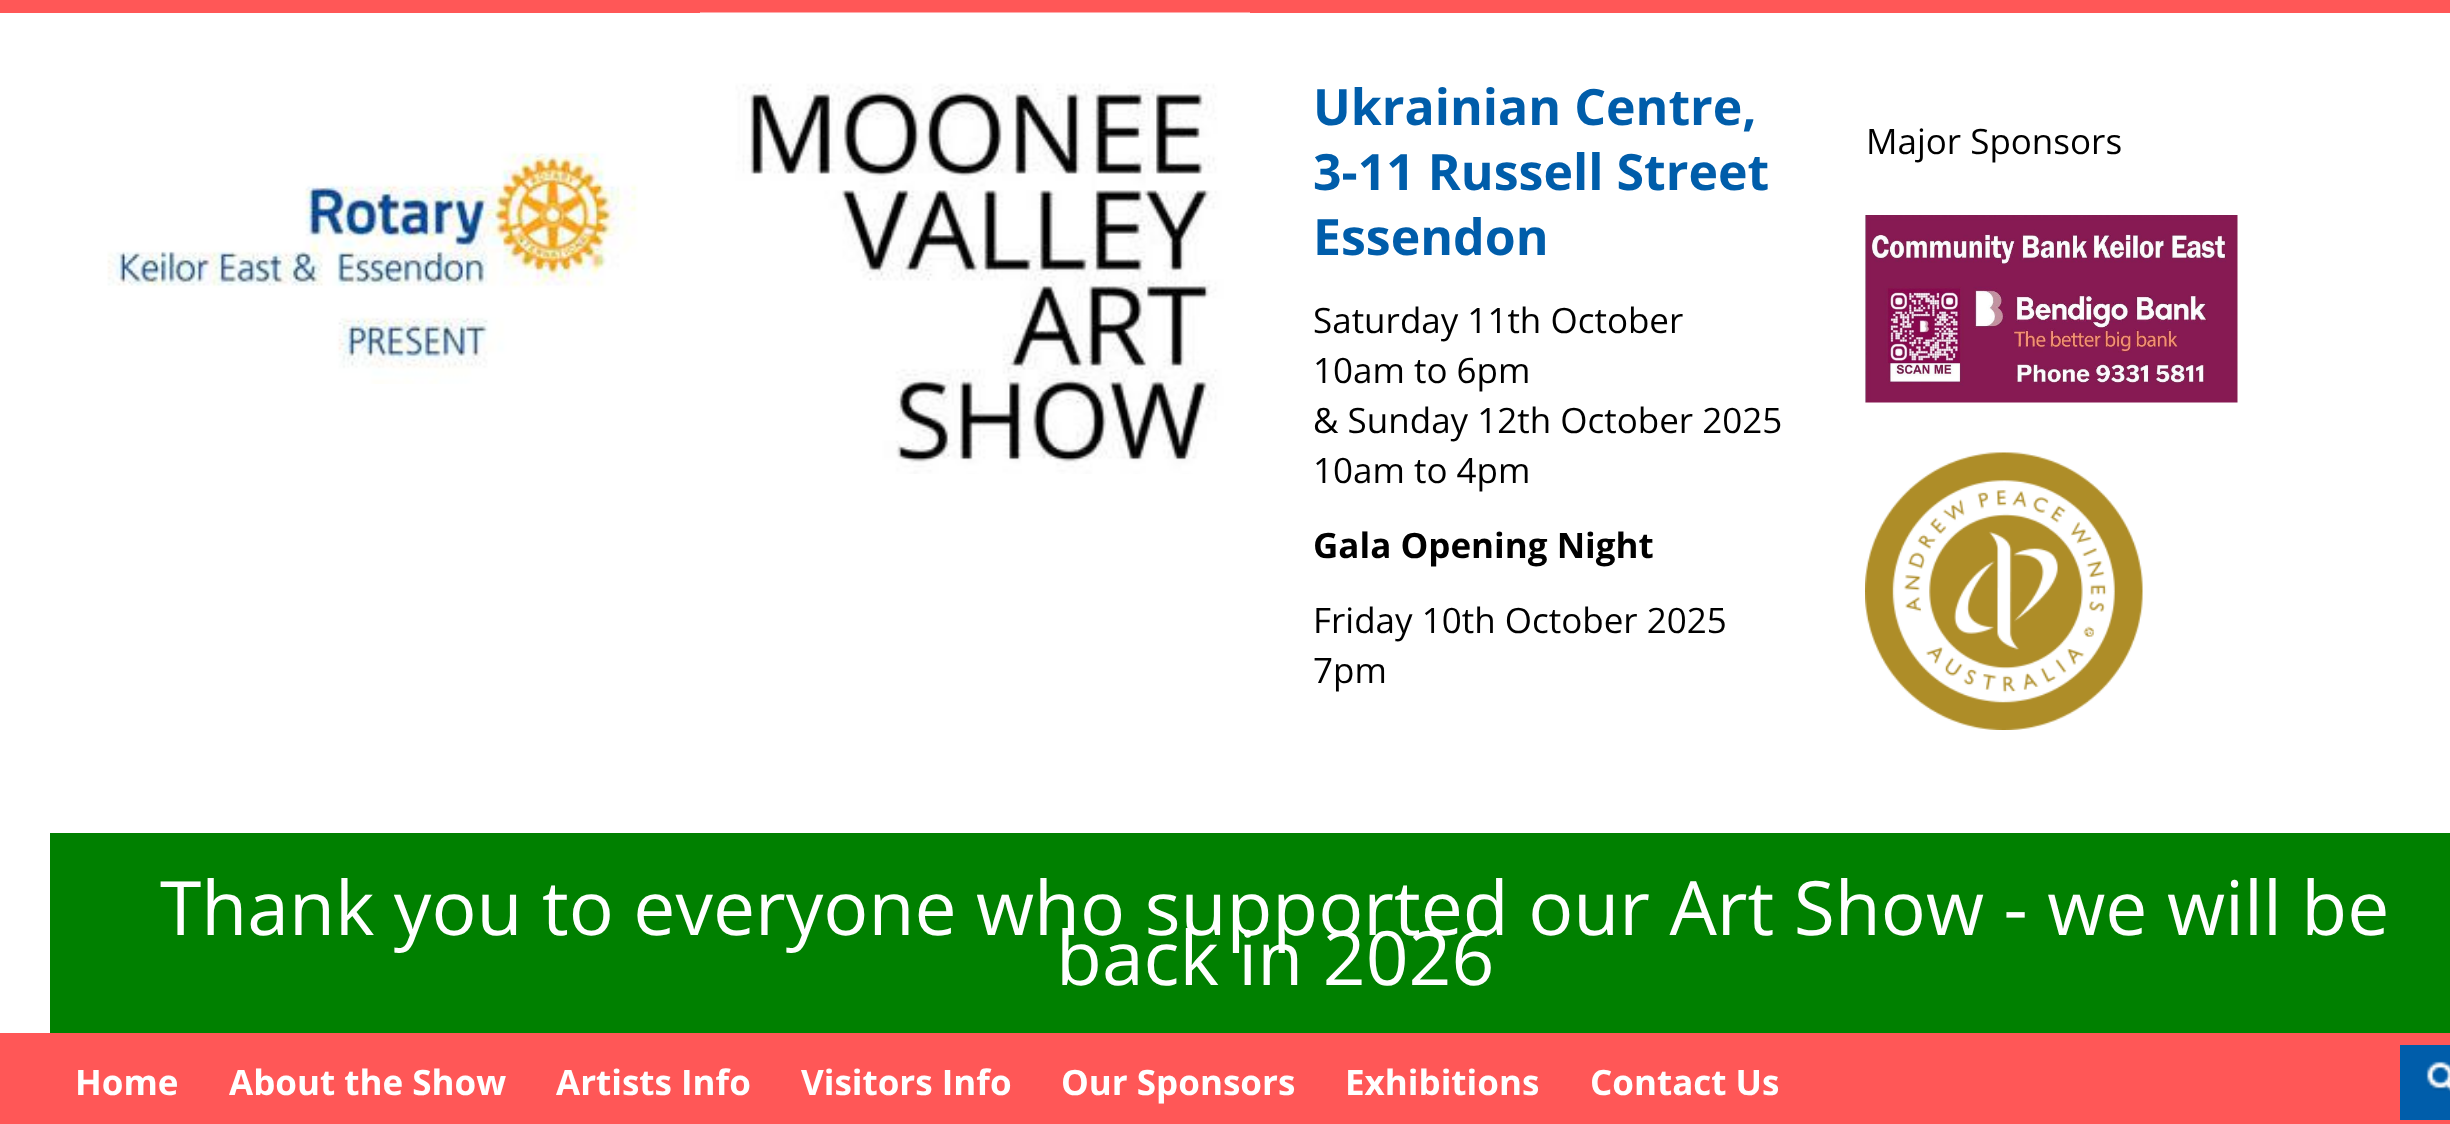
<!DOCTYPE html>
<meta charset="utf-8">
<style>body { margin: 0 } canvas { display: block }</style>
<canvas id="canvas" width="2450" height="1124"></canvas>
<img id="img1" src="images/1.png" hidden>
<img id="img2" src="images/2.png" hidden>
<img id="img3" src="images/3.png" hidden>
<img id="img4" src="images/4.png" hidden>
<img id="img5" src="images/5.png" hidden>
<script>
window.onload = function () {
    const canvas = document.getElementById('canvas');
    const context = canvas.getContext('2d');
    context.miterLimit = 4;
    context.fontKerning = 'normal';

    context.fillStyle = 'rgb(255, 255, 255)';
    context.fillRect(0, 0, 2450, 1124);
    context.fillStyle = 'rgb(255, 87, 87)';
    context.fillRect(0, 0, 2450, 13);
    context.drawImage(document.getElementById('img1'), 107, 151, 531, 233);
    context.drawImage(document.getElementById('img2'), 700, 12, 550, 462);
    context.drawImage(document.getElementById('img3'), 1865, 215, 373, 188);
    context.drawImage(document.getElementById('img4'), 1865, 452, 278, 278);
    context.fillStyle = 'rgb(0, 128, 0)';
    context.fillRect(50, 833, 2400, 200);
    context.fillStyle = 'rgb(255, 87, 87)';
    context.fillRect(0, 1033, 2450, 91);
    context.fillStyle = 'rgb(0, 93, 170)';
    context.fillRect(2400, 1045, 50, 75);
    context.drawImage(document.getElementById('img5'), 2426, 1061, 24, 32);
    context.font = 'bold 50px Open Sans';
    context.fillText('Ukrainian Centre,', 1313, 125);
    context.fillText('3-11 Russell Street', 1313, 190);
    context.fillText('Essendon', 1313, 255);
    context.font = '35px Open Sans';
    context.fillStyle = 'rgb(0, 0, 0)';
    context.fillText('Saturday 11th October', 1313, 333);
    context.fillText('10am to 6pm', 1313, 383);
    context.fillText('& Sunday 12th October 2025', 1313, 433);
    context.fillText('10am to 4pm', 1313, 483);
    context.font = 'bold 35px Open Sans';
    context.fillText('Gala Opening Night', 1313, 558);
    context.font = '35px Open Sans';
    context.fillText('Friday 10th October 2025', 1313, 633);
    context.fillText('7pm', 1313, 683);
    context.fillText('Major Sponsors', 1866, 154);
    context.font = '75px Open Sans';
    context.fillStyle = 'rgb(255, 255, 255)';
    context.fillText('Thank you to everyone who supported our Art Show - we will be', 160, 935);
    context.fillText('back in 2026', 1056, 985);
    context.font = 'bold 35px Open Sans';
    context.fillText('Home', 75, 1095);
    context.fillText('About the Show', 229, 1095);
    context.fillText('Artists Info', 556, 1095);
    context.fillText('Visitors Info', 801, 1095);
    context.fillText('Our Sponsors', 1061, 1095);
    context.fillText('Exhibitions', 1345, 1095);
    context.fillText('Contact Us', 1590, 1095);
};
</script>
